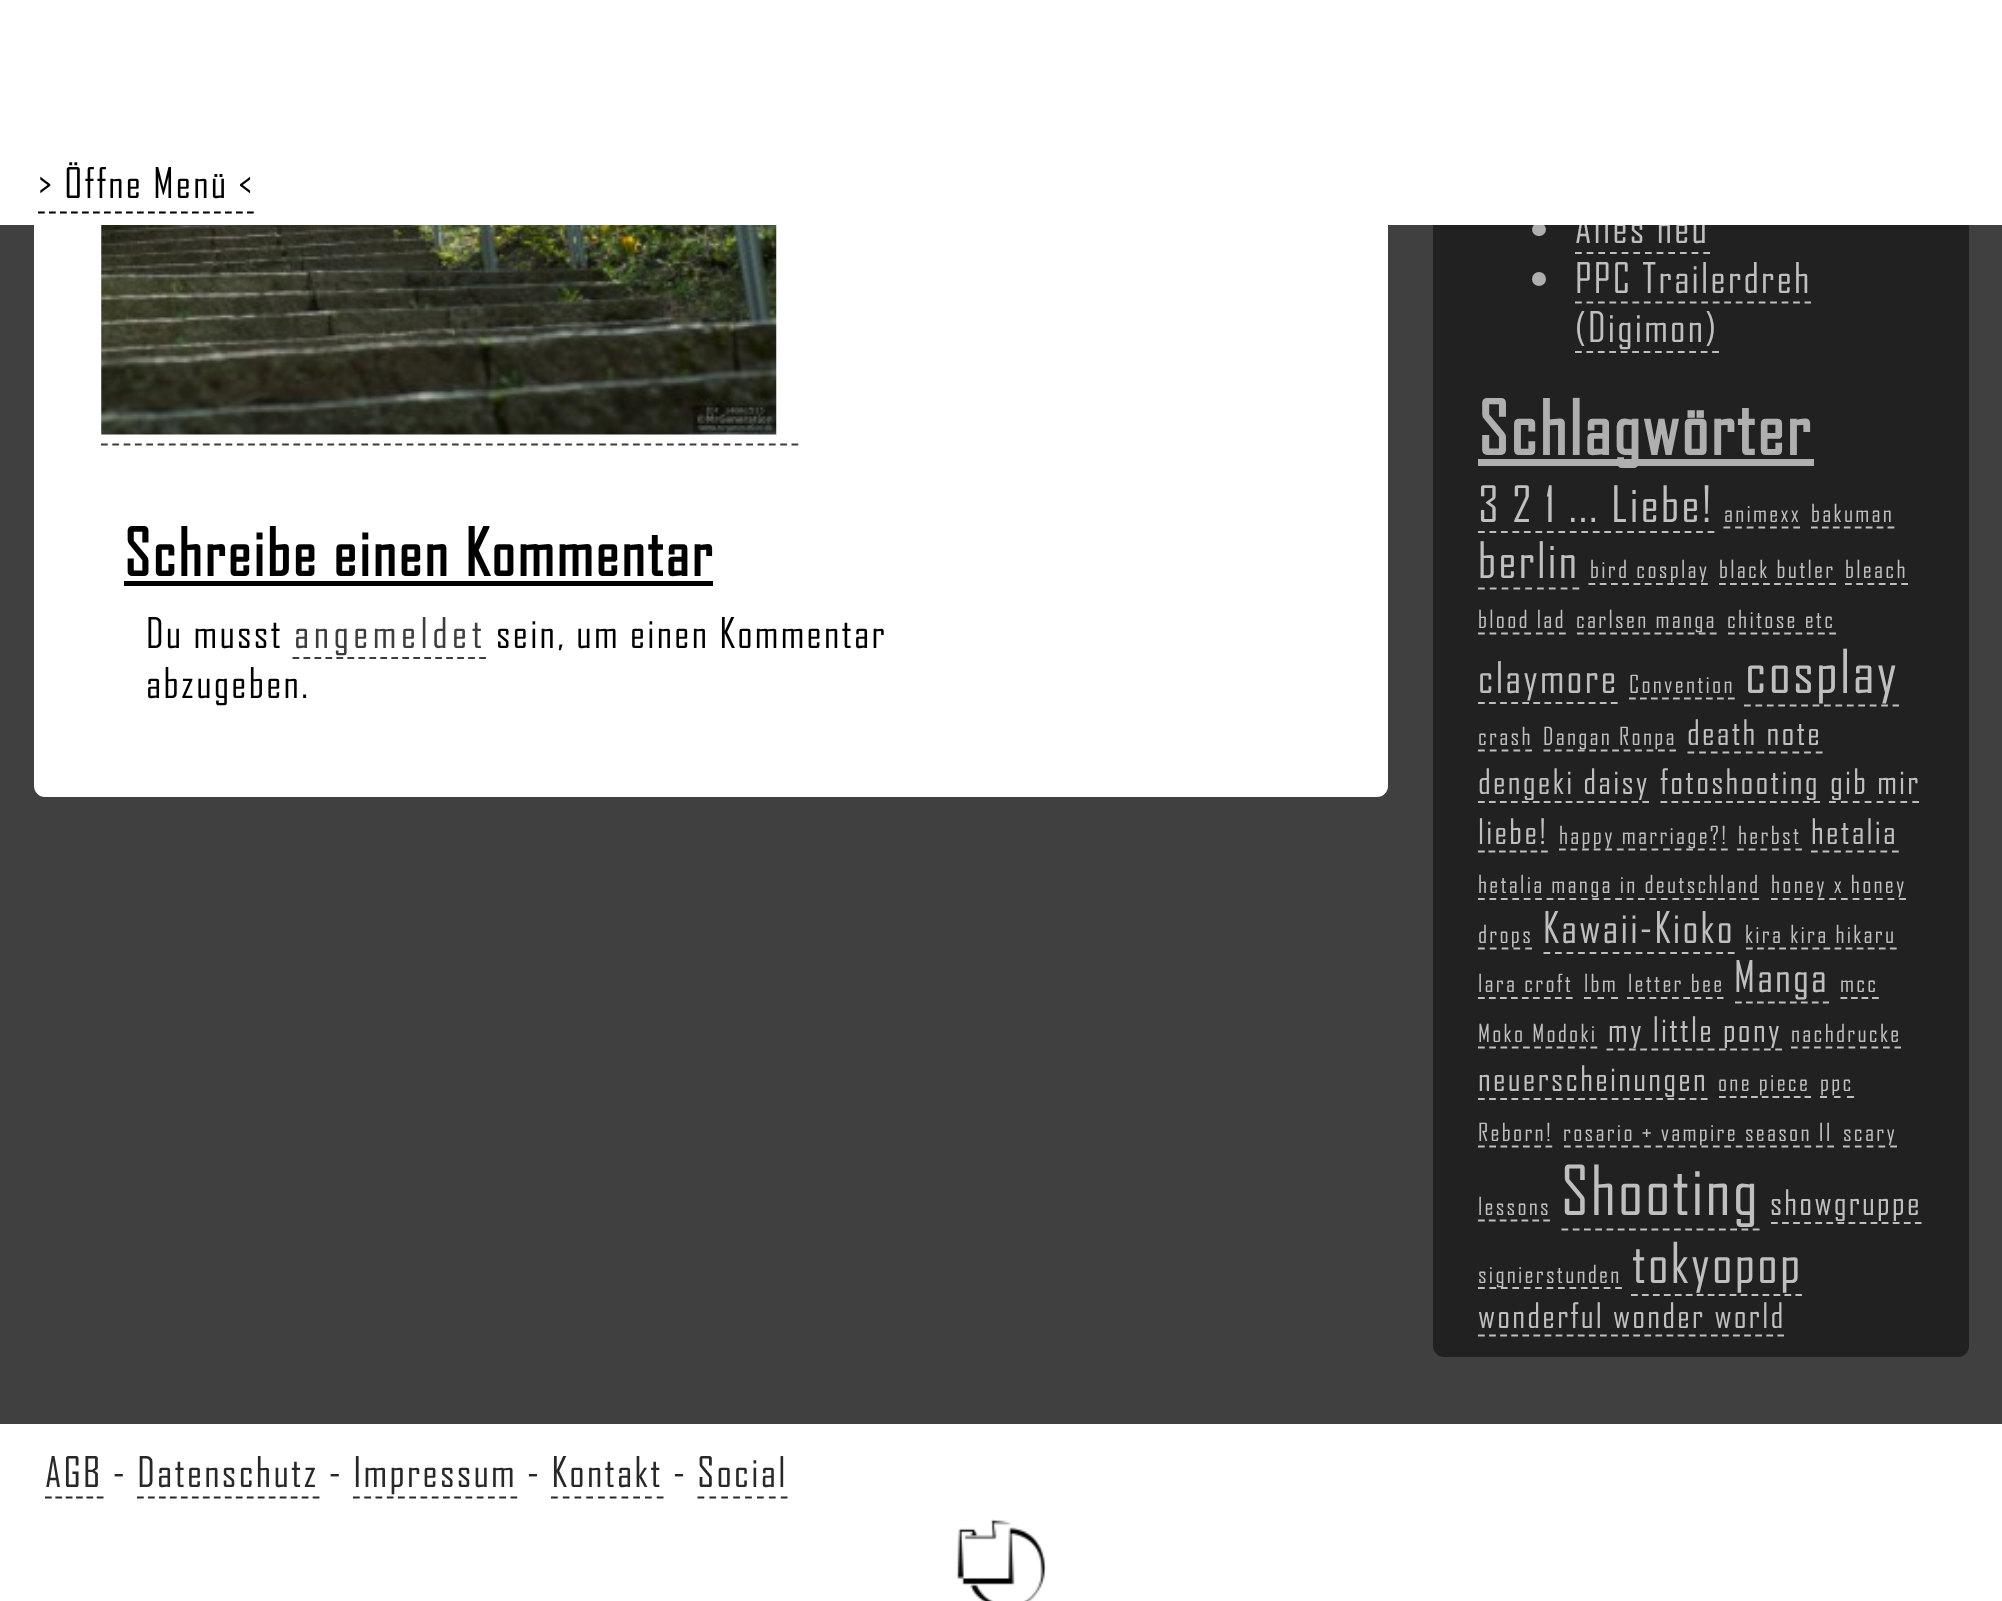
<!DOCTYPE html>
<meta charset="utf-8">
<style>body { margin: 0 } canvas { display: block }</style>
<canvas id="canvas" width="2002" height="1601"></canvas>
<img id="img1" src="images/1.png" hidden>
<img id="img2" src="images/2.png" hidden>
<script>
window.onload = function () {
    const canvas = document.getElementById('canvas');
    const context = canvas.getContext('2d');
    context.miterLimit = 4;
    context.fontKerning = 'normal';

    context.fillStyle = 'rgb(64, 64, 64)';
    context.fillRect(0, 0, 2002, 1601);
    context.fillStyle = 'rgb(255, 255, 255)';
    context.beginPath();
    context.roundRect(34, -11, 1354, 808, 11);
    context.fill();
    context.drawImage(document.getElementById('img1'), 101, 225, 676, 210);
    context.beginPath();
    context.moveTo(101, 444.5);
    context.lineTo(799, 444.5);
    context.strokeStyle = 'rgb(61, 61, 61)';
    context.lineWidth = 2.2;
    context.setLineDash([6.75, 4.57]);
    context.stroke();
    context.fillStyle = 'rgb(0, 0, 0)';
    context.fillRect(124, 581, 589, 5);
    context.beginPath();
    context.moveTo(292.5, 658);
    context.lineTo(486, 658);
    context.setLineDash([6.75, 4.23]);
    context.stroke();
    context.fillStyle = 'rgb(33, 33, 33)';
    context.beginPath();
    context.roundRect(1433, -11, 536, 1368, 11);
    context.fill();
    context.fillStyle = 'rgb(175, 175, 175)';
    context.beginPath();
    context.roundRect(1532, 223, 14, 13, 6.5);
    context.fill();
    context.beginPath();
    context.moveTo(1575, 253);
    context.lineTo(1710, 253);
    context.strokeStyle = 'rgb(191, 191, 191)';
    context.setLineDash([6.75, 4.91]);
    context.stroke();
    context.beginPath();
    context.arc(1539, 279, 7, 0, 2 * Math.PI);
    context.fill();
    context.beginPath();
    context.moveTo(1575, 302.5);
    context.lineTo(1811, 302.5);
    context.setLineDash([6.75, 4.73]);
    context.stroke();
    context.beginPath();
    context.moveTo(1575, 352);
    context.lineTo(1719, 352);
    context.setLineDash([6.75, 4.68]);
    context.stroke();
    context.fillRect(1478, 459, 336, 7);
    context.beginPath();
    context.moveTo(1478, 532);
    context.lineTo(1714.5, 532);
    context.setLineDash([6.75, 4.73]);
    context.stroke();
    context.beginPath();
    context.moveTo(1723.5, 527.5);
    context.lineTo(1800, 527.5);
    context.setLineDash([6.75, 4.88]);
    context.stroke();
    context.beginPath();
    context.moveTo(1811, 527.5);
    context.lineTo(1894.5, 527.5);
    context.setLineDash([6.75, 4.19]);
    context.stroke();
    context.beginPath();
    context.moveTo(1478, 588.5);
    context.lineTo(1579.5, 588.5);
    context.setLineDash([6.75, 5.06]);
    context.stroke();
    context.beginPath();
    context.moveTo(1588.5, 584);
    context.lineTo(1708, 584);
    context.setLineDash([6.75, 4.5]);
    context.stroke();
    context.beginPath();
    context.moveTo(1719, 584);
    context.lineTo(1836, 584);
    context.setLineDash([6.75, 4.27]);
    context.stroke();
    context.beginPath();
    context.moveTo(1845, 584);
    context.lineTo(1908, 584);
    context.setLineDash([6.75, 4.5]);
    context.stroke();
    context.beginPath();
    context.moveTo(1478, 633.5);
    context.lineTo(1566, 633.5);
    context.setLineDash([6.75, 4.82]);
    context.stroke();
    context.beginPath();
    context.moveTo(1577, 633.5);
    context.lineTo(1717, 633.5);
    context.setLineDash([6.75, 4.32]);
    context.stroke();
    context.beginPath();
    context.moveTo(1728, 633.5);
    context.lineTo(1836, 633.5);
    context.setLineDash([6.75, 4.5]);
    context.stroke();
    context.beginPath();
    context.moveTo(1478, 703);
    context.lineTo(1618, 703);
    context.setLineDash([6.75, 4.32]);
    context.stroke();
    context.beginPath();
    context.moveTo(1629, 698.5);
    context.lineTo(1735, 698.5);
    context.setLineDash([6.75, 4.25]);
    context.stroke();
    context.beginPath();
    context.moveTo(1744, 705.5);
    context.lineTo(1899, 705.5);
    context.setLineDash([6.75, 4.68]);
    context.stroke();
    context.beginPath();
    context.moveTo(1478, 750.5);
    context.lineTo(1532, 750.5);
    context.setLineDash([6.75, 5.06]);
    context.stroke();
    context.beginPath();
    context.moveTo(1543.5, 750.5);
    context.lineTo(1676, 750.5);
    context.setLineDash([6.75, 4.7]);
    context.stroke();
    context.beginPath();
    context.moveTo(1687.5, 752.5);
    context.lineTo(1822.5, 752.5);
    context.setLineDash([6.75, 4.91]);
    context.stroke();
    context.beginPath();
    context.moveTo(1478, 802);
    context.lineTo(1649, 802);
    context.setLineDash([6.75, 4.21]);
    context.stroke();
    context.beginPath();
    context.moveTo(1660.5, 802);
    context.lineTo(1820, 802);
    context.setLineDash([6.75, 4.19]);
    context.stroke();
    context.beginPath();
    context.moveTo(1829, 802);
    context.lineTo(1919, 802);
    context.setLineDash([6.75, 5.15]);
    context.stroke();
    context.beginPath();
    context.moveTo(1478, 851.5);
    context.lineTo(1548, 851.5);
    context.setLineDash([6.75, 3.76]);
    context.stroke();
    context.beginPath();
    context.moveTo(1559, 849.5);
    context.lineTo(1728, 849.5);
    context.setLineDash([6.75, 4.82]);
    context.stroke();
    context.beginPath();
    context.moveTo(1737, 849.5);
    context.lineTo(1802, 849.5);
    context.setLineDash([6.75, 4.95]);
    context.stroke();
    context.beginPath();
    context.moveTo(1811, 851.5);
    context.lineTo(1899, 851.5);
    context.setLineDash([6.75, 4.82]);
    context.stroke();
    context.beginPath();
    context.moveTo(1478, 899);
    context.lineTo(1759.5, 899);
    context.setLineDash([6.75, 4.68]);
    context.stroke();
    context.beginPath();
    context.moveTo(1771, 899);
    context.lineTo(1906, 899);
    context.setLineDash([6.75, 4.91]);
    context.stroke();
    context.beginPath();
    context.moveTo(1478, 948.5);
    context.lineTo(1532, 948.5);
    context.setLineDash([6.75, 5.06]);
    context.stroke();
    context.beginPath();
    context.moveTo(1543.5, 953);
    context.lineTo(1735, 953);
    context.setLineDash([6.75, 4.77]);
    context.stroke();
    context.beginPath();
    context.moveTo(1746, 948.5);
    context.lineTo(1897, 948.5);
    context.setLineDash([6.75, 4.32]);
    context.stroke();
    context.beginPath();
    context.moveTo(1478, 998);
    context.lineTo(1573, 998);
    context.setLineDash([6.75, 4.23]);
    context.stroke();
    context.beginPath();
    context.moveTo(1584, 998);
    context.lineTo(1591, 998);
    context.moveTo(1597.5, 998);
    context.lineTo(1604, 998);
    context.moveTo(1611, 998);
    context.lineTo(1618, 998);
    context.setLineDash([]);
    context.stroke();
    context.beginPath();
    context.moveTo(1627, 998);
    context.lineTo(1723.5, 998);
    context.setLineDash([6.75, 4.5]);
    context.stroke();
    context.beginPath();
    context.moveTo(1735, 1002.5);
    context.lineTo(1829, 1002.5);
    context.setLineDash([6.75, 4.23]);
    context.stroke();
    context.beginPath();
    context.moveTo(1840.5, 998);
    context.lineTo(1879, 998);
    context.setLineDash([6.75, 3.76]);
    context.stroke();
    context.beginPath();
    context.moveTo(1478, 1047.5);
    context.lineTo(1597.5, 1047.5);
    context.setLineDash([6.75, 4.5]);
    context.stroke();
    context.beginPath();
    context.moveTo(1606.5, 1049.5);
    context.lineTo(1782, 1049.5);
    context.stroke();
    context.beginPath();
    context.moveTo(1791, 1047.5);
    context.lineTo(1901, 1047.5);
    context.setLineDash([6.75, 4.75]);
    context.stroke();
    context.beginPath();
    context.moveTo(1478, 1099);
    context.lineTo(1708, 1099);
    context.setLineDash([6.75, 4.39]);
    context.stroke();
    context.beginPath();
    context.moveTo(1719, 1097);
    context.lineTo(1811, 1097);
    context.setLineDash([6.75, 3.94]);
    context.stroke();
    context.beginPath();
    context.moveTo(1820, 1097);
    context.lineTo(1827, 1097);
    context.moveTo(1834, 1097);
    context.lineTo(1840.5, 1097);
    context.moveTo(1847, 1097);
    context.lineTo(1854, 1097);
    context.setLineDash([]);
    context.stroke();
    context.beginPath();
    context.moveTo(1478, 1146.5);
    context.lineTo(1552.5, 1146.5);
    context.setLineDash([6.75, 4.5]);
    context.stroke();
    context.beginPath();
    context.moveTo(1564, 1146.5);
    context.lineTo(1834, 1146.5);
    context.setLineDash([6.75, 4.7]);
    context.stroke();
    context.beginPath();
    context.moveTo(1843, 1146.5);
    context.lineTo(1897, 1146.5);
    context.setLineDash([6.75, 5.06]);
    context.stroke();
    context.beginPath();
    context.moveTo(1478, 1220.5);
    context.lineTo(1550, 1220.5);
    context.setLineDash([6.75, 4.12]);
    context.stroke();
    context.beginPath();
    context.moveTo(1561.5, 1229.5);
    context.lineTo(1759.5, 1229.5);
    context.setLineDash([6.75, 4.5]);
    context.stroke();
    context.beginPath();
    context.moveTo(1771, 1223);
    context.lineTo(1921.5, 1223);
    context.setLineDash([6.75, 4.32]);
    context.stroke();
    context.beginPath();
    context.moveTo(1478, 1288);
    context.lineTo(1622, 1288);
    context.setLineDash([6.75, 4.68]);
    context.stroke();
    context.beginPath();
    context.moveTo(1631, 1295);
    context.lineTo(1802, 1295);
    context.setLineDash([6.75, 4.21]);
    context.stroke();
    context.beginPath();
    context.moveTo(1478, 1335.5);
    context.lineTo(1784, 1335.5);
    context.setLineDash([6.75, 4.34]);
    context.stroke();
    context.fillStyle = 'rgb(255, 255, 255)';
    context.fillRect(0, 1424, 2002, 177);
    context.beginPath();
    context.moveTo(45, 1497.5);
    context.lineTo(103.5, 1497.5);
    context.strokeStyle = 'rgb(40, 40, 40)';
    context.setLineDash([6.75, 3.6]);
    context.stroke();
    context.beginPath();
    context.moveTo(137, 1497.5);
    context.lineTo(319.5, 1497.5);
    context.setLineDash([6.75, 4.23]);
    context.stroke();
    context.beginPath();
    context.moveTo(353, 1497.5);
    context.lineTo(517.5, 1497.5);
    context.setLineDash([6.75, 4.5]);
    context.stroke();
    context.beginPath();
    context.moveTo(551, 1497.5);
    context.lineTo(664, 1497.5);
    context.setLineDash([6.75, 5]);
    context.stroke();
    context.beginPath();
    context.moveTo(697.5, 1497.5);
    context.lineTo(787.5, 1497.5);
    context.setLineDash([6.75, 5.15]);
    context.stroke();
    context.drawImage(document.getElementById('img2'), 956, 1519, 91, 82);
    context.letterSpacing = '2.25px';
    context.font = 'bold 63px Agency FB';
    context.fillStyle = 'rgb(0, 0, 0)';
    context.fillText('Schreibe einen Kommentar', 124, 576);
    context.font = '40.5px Agency FB';
    context.fillText('Du musst', 146, 648);
    context.letterSpacing = '4.5px';
    context.fillStyle = 'rgb(61, 61, 61)';
    context.fillText('angemeldet', 294, 648);
    context.letterSpacing = '2.25px';
    context.fillStyle = 'rgb(0, 0, 0)';
    context.fillText('sein, um einen Kommentar', 496, 648);
    context.fillText('abzugeben.', 146, 698);
    context.fillStyle = 'rgb(191, 191, 191)';
    context.fillText('Alles neu', 1575, 243);
    context.fillStyle = 'rgb(255, 255, 255)';
    context.fillRect(0, 0, 2002, 225);
    context.fillStyle = 'rgb(0, 0, 0)';
    context.fillText('> Öffne Menü <', 38, 198);
    context.beginPath();
    context.moveTo(38, 212.5);
    context.lineTo(254, 212.5);
    context.strokeStyle = 'rgb(0, 0, 0)';
    context.setLineDash([6.75, 4.25]);
    context.stroke();
    context.fillStyle = 'rgb(191, 191, 191)';
    context.fillText('PPC Trailerdreh', 1575, 293);
    context.fillText('(Digimon)', 1575, 342);
    context.font = 'bold 72px Agency FB';
    context.fillStyle = 'rgb(175, 175, 175)';
    context.fillText('Schlagwörter', 1478, 455);
    context.font = '48.25px Agency FB';
    context.fillStyle = 'rgb(191, 191, 191)';
    context.fillText('3 2 1 ... Liebe!', 1478, 522);
    context.font = '24px Agency FB';
    context.fillText('animexx', 1724, 522);
    context.fillText('bakuman', 1811, 522);
    context.font = '48.25px Agency FB';
    context.fillText('berlin', 1478, 578);
    context.font = '24px Agency FB';
    context.fillText('bird cosplay', 1590, 578);
    context.fillText('black butler', 1719, 578);
    context.fillText('bleach', 1845, 578);
    context.fillText('blood lad', 1478, 628);
    context.fillText('carlsen manga', 1576, 628);
    context.fillText('chitose etc', 1727, 628);
    context.font = '41.75px Agency FB';
    context.fillText('claymore', 1478, 693);
    context.font = '24px Agency FB';
    context.fillText('Convention', 1629, 693);
    context.font = '58px Agency FB';
    context.fillText('cosplay', 1745, 693);
    context.font = '24px Agency FB';
    context.fillText('crash', 1478, 745);
    context.fillText('Dangan Ronpa', 1543, 745);
    context.font = '33.75px Agency FB';
    context.fillText('death note', 1687, 745);
    context.fillText('dengeki daisy', 1478, 794);
    context.fillText('fotoshooting', 1660, 794);
    context.fillText('gib mir', 1830, 794);
    context.fillText('liebe!', 1478, 844);
    context.font = '24px Agency FB';
    context.fillText('happy marriage?!', 1559, 844);
    context.fillText('herbst', 1738, 844);
    context.font = '33.75px Agency FB';
    context.fillText('hetalia', 1811, 844);
    context.font = '24px Agency FB';
    context.fillText('hetalia manga in deutschland', 1478, 893);
    context.fillText('honey x honey', 1771, 893);
    context.fillText('drops', 1478, 943);
    context.font = '41.75px Agency FB';
    context.fillText('Kawaii-Kioko', 1543, 943);
    context.font = '24px Agency FB';
    context.fillText('kira kira hikaru', 1745, 943);
    context.fillText('lara croft', 1478, 992);
    context.fillText('lbm', 1584, 992);
    context.fillText('letter bee', 1628, 992);
    context.font = '41.75px Agency FB';
    context.fillText('Manga', 1734, 992);
    context.font = '24px Agency FB';
    context.fillText('mcc', 1840, 992);
    context.fillText('Moko Modoki', 1478, 1042);
    context.font = '33.75px Agency FB';
    context.fillText('my little pony', 1608, 1042);
    context.font = '24px Agency FB';
    context.fillText('nachdrucke', 1791, 1042);
    context.font = '33.75px Agency FB';
    context.fillText('neuerscheinungen', 1478, 1091);
    context.font = '24px Agency FB';
    context.fillText('one piece', 1718, 1091);
    context.fillText('ppc', 1820, 1091);
    context.fillText('Reborn!', 1478, 1141);
    context.fillText('rosario + vampire season II', 1563, 1141);
    context.fillText('scary', 1843, 1141);
    context.fillText('lessons', 1478, 1215);
    context.font = '66px Agency FB';
    context.fillText('Shooting', 1561, 1215);
    context.font = '33.75px Agency FB';
    context.fillText('showgruppe', 1770, 1215);
    context.font = '24px Agency FB';
    context.fillText('signierstunden', 1478, 1283);
    context.font = '54px Agency FB';
    context.fillText('tokyopop', 1632, 1283);
    context.font = '33.75px Agency FB';
    context.fillText('wonderful wonder world', 1478, 1328);
    context.font = '40.5px Agency FB';
    context.fillStyle = 'rgb(40, 40, 40)';
    context.fillText('AGB - Datenschutz - Impressum - Kontakt - Social', 45, 1487);
};
</script>
